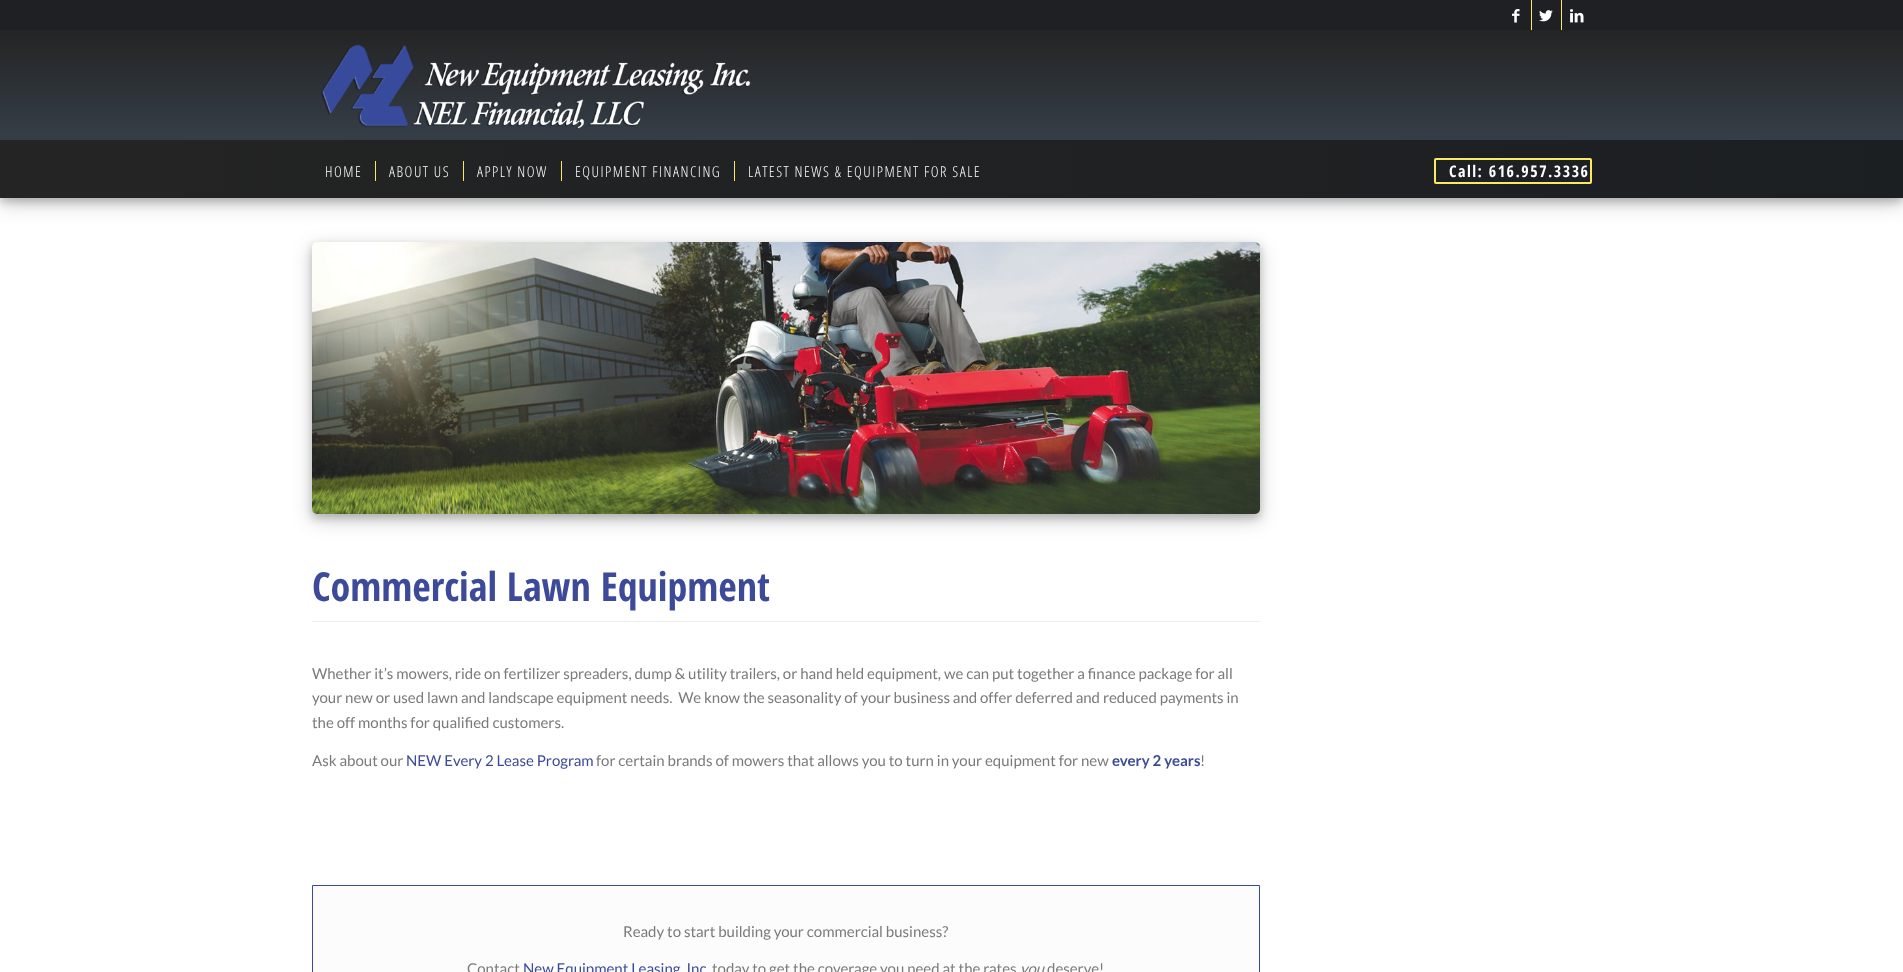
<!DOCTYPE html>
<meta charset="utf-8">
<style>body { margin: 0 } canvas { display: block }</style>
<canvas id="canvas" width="1903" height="972"></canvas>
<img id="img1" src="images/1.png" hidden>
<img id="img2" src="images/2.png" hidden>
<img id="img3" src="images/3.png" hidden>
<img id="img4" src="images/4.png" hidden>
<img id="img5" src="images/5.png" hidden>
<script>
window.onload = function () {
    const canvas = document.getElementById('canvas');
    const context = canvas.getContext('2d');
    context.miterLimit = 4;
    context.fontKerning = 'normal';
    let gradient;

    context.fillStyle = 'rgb(255, 255, 255)';
    context.fillRect(0, 0, 1903, 972);
    context.fillStyle = 'rgba(0, 0, 0, 0.19)';
    context.filter = 'blur(10px)';
    context.beginPath();
    context.rect(0, 6, 1903, 198);
    context.fill();
    context.filter = 'none';
    context.fillStyle = 'rgba(0, 0, 0, 0.2)';
    context.filter = 'blur(4px)';
    context.beginPath();
    context.rect(0, 4, 1903, 198);
    context.fill();
    context.filter = 'none';
    context.fillStyle = 'rgb(30, 32, 35)';
    context.fillRect(0, 0, 1903, 30);
    context.fillStyle = 'rgb(252, 232, 102)';
    context.fillRect(1531, 0, 1, 30);
    context.drawImage(document.getElementById('img1'), 1512, 9, 8, 14);
    context.fillRect(1561, 0, 1, 30);
    context.drawImage(document.getElementById('img2'), 1539, 10, 14, 12);
    context.drawImage(document.getElementById('img3'), 1570, 9, 14, 14);
    gradient = context.createLinearGradient(952, 30, 952, 198);
    gradient.addColorStop(0, 'rgb(36, 36, 36)');
    gradient.addColorStop(1, 'rgb(62, 76, 91)');
    context.fillStyle = gradient;
    context.fillRect(0, 30, 1903, 110);
    context.drawImage(document.getElementById('img4'), 321, 44, 430, 85);
    gradient = context.createLinearGradient(0, 169, 1903, 169);
    gradient.addColorStop(0, 'rgb(36, 36, 36)');
    gradient.addColorStop(1, 'rgb(28, 31, 34)');
    context.fillStyle = gradient;
    context.fillRect(0, 140, 1903, 58);
    context.fillStyle = 'rgb(252, 232, 102)';
    context.fillRect(375, 161, 1, 20);
    context.fillRect(463, 161, 1, 20);
    context.fillRect(561, 161, 1, 20);
    context.fillRect(734, 161, 1, 20);
    context.beginPath();
    context.roundRect(1435, 159, 156, 24, 1);
    context.strokeStyle = 'rgb(252, 232, 102)';
    context.lineWidth = 2;
    context.stroke();
    context.fillStyle = 'rgba(0, 0, 0, 0.19)';
    context.filter = 'blur(10px)';
    context.beginPath();
    context.rect(312, 248, 948, 272);
    context.fill();
    context.filter = 'none';
    context.fillStyle = 'rgba(0, 0, 0, 0.2)';
    context.filter = 'blur(4px)';
    context.beginPath();
    context.rect(312, 246, 948, 272);
    context.fill();
    context.filter = 'none';
    context.drawImage(document.getElementById('img5'), 312, 242, 948, 272);
    context.fillStyle = 'rgb(237, 237, 237)';
    context.fillRect(312, 621, 948, 1);
    context.fillStyle = 'rgb(252, 252, 252)';
    context.beginPath();
    context.rect(312.5, 885.5, 947, 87);
    context.fill();
    context.strokeStyle = 'rgb(56, 74, 155)';
    context.lineWidth = 1;
    context.stroke();
    context.letterSpacing = '1.5px';
    context.font = '300 15px Open Sans Condensed';
    context.fillStyle = 'rgb(255, 255, 255)';
    context.fillText('HOME', 325, 177);
    context.fillText('ABOUT US', 389, 177);
    context.fillText('APPLY NOW', 477, 177);
    context.fillText('EQUIPMENT FINANCING', 575, 177);
    context.fillText('LATEST NEWS & EQUIPMENT FOR SALE', 748, 177);
    context.font = 'bold 16px Open Sans Condensed';
    context.fillText('Call: 616.957.3336', 1449, 177);
    context.letterSpacing = '0px';
    context.font = 'bold 40px Open Sans Condensed';
    context.fillStyle = 'rgb(61, 74, 154)';
    context.fillText('Commercial Lawn Equipment', 312, 601);
    context.font = '15px Lato';
    context.fillStyle = 'rgb(122, 122, 122)';
    context.fillText('Whether it’s mowers, ride on fertilizer spreaders, dump & utility trailers, or hand held equipment, we can put together a finance package for all', 312, 679);
    context.fillText('your new or used lawn and landscape equipment needs.  We know the seasonality of your business and offer deferred and reduced payments in', 312, 703);
    context.fillText('the off months for qualified customers.', 312, 728);
    context.fillText('Ask about our', 312, 766);
    context.fillStyle = 'rgb(61, 74, 154)';
    context.fillText('NEW Every 2 Lease Program', 406, 766);
    context.fillStyle = 'rgb(122, 122, 122)';
    context.fillText('for certain brands of mowers that allows you to turn in your equipment for new', 596, 766);
    context.font = 'bold 15px Lato';
    context.fillStyle = 'rgb(61, 74, 154)';
    context.fillText('every 2 years', 1112, 766);
    context.font = '15px Lato';
    context.fillStyle = 'rgb(122, 122, 122)';
    context.fillText('!', 1200, 766);
    context.fillText('Ready to start building your commercial business?', 623, 937);
    context.fillText('Contact', 467, 974);
    context.fillStyle = 'rgb(61, 74, 154)';
    context.fillText('New Equipment Leasing, Inc', 523, 974);
    context.fillStyle = 'rgb(122, 122, 122)';
    context.fillText('today to get the coverage you need at the rates', 712, 974);
    context.font = 'italic 15px Lato';
    context.fillText('you', 1020, 974);
    context.font = '15px Lato';
    context.fillText('deserve!', 1047, 974);
};
</script>
